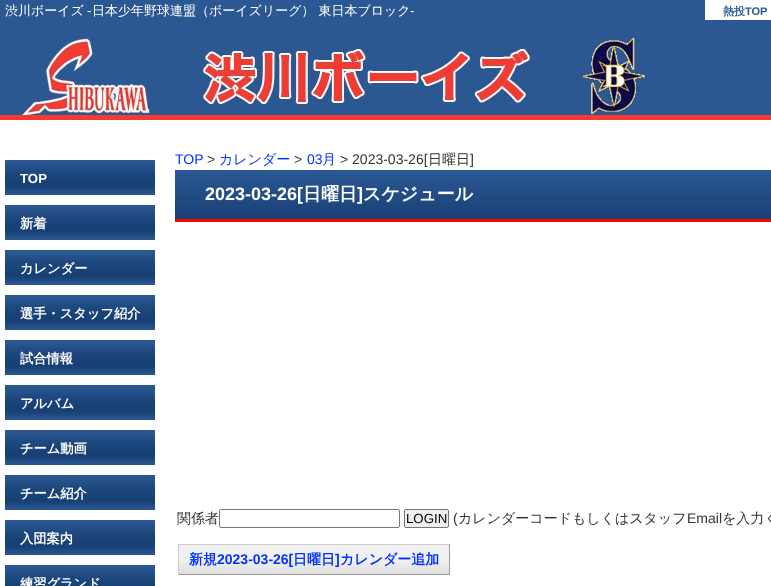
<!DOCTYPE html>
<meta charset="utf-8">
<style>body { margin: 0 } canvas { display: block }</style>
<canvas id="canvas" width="771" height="586"></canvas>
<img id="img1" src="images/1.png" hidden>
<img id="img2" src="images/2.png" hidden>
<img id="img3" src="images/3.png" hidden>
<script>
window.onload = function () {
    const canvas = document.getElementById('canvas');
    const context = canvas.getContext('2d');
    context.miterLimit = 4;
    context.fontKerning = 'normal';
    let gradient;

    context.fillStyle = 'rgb(255, 255, 255)';
    context.fillRect(0, 0, 771, 586);
    context.fillStyle = 'rgb(43, 88, 147)';
    context.fillRect(0, 0, 771, 115);
    context.fillStyle = 'rgb(244, 58, 49)';
    context.fillRect(0, 115, 771, 5);
    context.fillStyle = 'rgb(255, 255, 255)';
    context.fillRect(705, 0, 66, 20);
    context.drawImage(document.getElementById('img1'), 21, 36, 626, 79);
    context.drawImage(document.getElementById('img2'), 5, 160, 150, 35);
    context.drawImage(document.getElementById('img2'), 5, 205, 150, 35);
    context.drawImage(document.getElementById('img2'), 5, 250, 150, 35);
    context.drawImage(document.getElementById('img2'), 5, 295, 150, 35);
    context.drawImage(document.getElementById('img2'), 5, 340, 150, 35);
    context.drawImage(document.getElementById('img2'), 5, 385, 150, 35);
    context.drawImage(document.getElementById('img2'), 5, 430, 150, 35);
    context.drawImage(document.getElementById('img2'), 5, 475, 150, 35);
    context.drawImage(document.getElementById('img2'), 5, 520, 150, 35);
    context.drawImage(document.getElementById('img3'), 5, 565, 150, 21);
    gradient = context.createLinearGradient(175, 170, 175, 219);
    gradient.addColorStop(0, 'rgb(43, 88, 147)');
    gradient.addColorStop(1, 'rgb(24, 64, 117)');
    context.fillStyle = gradient;
    context.fillRect(175, 170, 596, 49);
    context.fillStyle = 'rgb(255, 0, 0)';
    context.fillRect(175, 219, 596, 3);
    context.beginPath();
    context.roundRect(219.5, 509.5, 180, 18, 1.5);
    context.strokeStyle = 'rgb(118, 118, 118)';
    context.stroke();
    context.fillStyle = 'rgb(239, 239, 239)';
    context.beginPath();
    context.roundRect(404.5, 509.5, 44, 18, 1.5);
    context.fill();
    context.stroke();
    gradient = context.createLinearGradient(179, 545, 179, 574);
    gradient.addColorStop(0, 'rgb(255, 255, 255)');
    gradient.addColorStop(0.01, 'rgb(241, 241, 241)');
    gradient.addColorStop(0.5, 'rgb(241, 241, 241)');
    gradient.addColorStop(0.99, 'rgb(223, 223, 223)');
    gradient.addColorStop(1, 'rgb(204, 204, 204)');
    context.fillStyle = gradient;
    context.fillRect(179, 545, 270, 29);
    context.fillStyle = 'rgb(204, 204, 204)';
    context.fillRect(178, 544, 272, 1);
    context.fillStyle = 'rgb(153, 153, 153)';
    context.fillRect(449, 544, 1, 31);
    context.fillRect(178, 574, 272, 1);
    context.fillStyle = 'rgb(204, 204, 204)';
    context.fillRect(178, 544, 1, 31);
    context.font = '500 13px WenQuanYi Zen Hei';
    context.fillStyle = 'rgb(255, 255, 255)';
    context.fillText('渋川ボーイズ', 5, 15);
    context.font = '13px Liberation Sans';
    context.fillText('-', 87, 15);
    context.font = '500 13px WenQuanYi Zen Hei';
    context.fillText('日本少年野球連盟（ボーイズリーグ） 東日本ブロック', 92, 15);
    context.font = '13px Liberation Sans';
    context.fillText('-', 410, 15);
    context.font = 'bold 11px WenQuanYi Zen Hei';
    context.fillStyle = 'rgb(43, 88, 147)';
    context.fillText('熱投', 723, 15);
    context.font = 'bold 11px Liberation Sans';
    context.fillText('TOP', 745, 15);
    context.font = 'bold 13.25px Liberation Sans';
    context.fillStyle = 'rgb(255, 255, 255)';
    context.fillText('TOP', 20, 183);
    context.font = 'bold 13.25px WenQuanYi Zen Hei';
    context.fillText('新着', 20, 228);
    context.fillText('カレンダー', 20, 273);
    context.fillText('選手・スタッフ紹介', 20, 318);
    context.fillText('試合情報', 20, 363);
    context.fillText('アルバム', 20, 408);
    context.fillText('チーム動画', 20, 453);
    context.fillText('チーム紹介', 20, 498);
    context.fillText('入団案内', 20, 543);
    context.fillText('練習グランド', 20, 588);
    context.font = '14px Liberation Sans';
    context.fillStyle = 'rgb(0, 51, 255)';
    context.fillText('TOP', 175, 164);
    context.fillStyle = 'rgb(51, 51, 51)';
    context.fillText('>', 207, 164);
    context.font = '500 14px WenQuanYi Zen Hei';
    context.fillStyle = 'rgb(0, 51, 255)';
    context.fillText('カレンダー', 219, 164);
    context.font = '14px Liberation Sans';
    context.fillStyle = 'rgb(51, 51, 51)';
    context.fillText('>', 294, 164);
    context.fillStyle = 'rgb(0, 51, 255)';
    context.fillText('03', 307, 164);
    context.font = '500 14px WenQuanYi Zen Hei';
    context.fillText('月', 322, 164);
    context.font = '14px Liberation Sans';
    context.fillStyle = 'rgb(51, 51, 51)';
    context.fillText('> 2023-03-26[', 340, 164);
    context.font = '500 14px WenQuanYi Zen Hei';
    context.fillText('日曜日', 428, 164);
    context.font = '14px Liberation Sans';
    context.fillText(']', 470, 164);
    context.font = 'bold 18px Liberation Sans';
    context.fillStyle = 'rgb(255, 255, 255)';
    context.fillText('2023-03-26[', 205, 200);
    context.font = 'bold 18px WenQuanYi Zen Hei';
    context.fillText('日曜日', 303, 200);
    context.font = 'bold 18px Liberation Sans';
    context.fillText(']', 357, 200);
    context.font = 'bold 18px WenQuanYi Zen Hei';
    context.fillText('スケジュール', 363, 200);
    context.font = '500 14px WenQuanYi Zen Hei';
    context.fillStyle = 'rgb(51, 51, 51)';
    context.fillText('関係者', 177, 523);
    context.font = '13.25px Liberation Sans';
    context.fillStyle = 'rgb(0, 0, 0)';
    context.fillText('LOGIN', 406, 523);
    context.font = '14px Liberation Sans';
    context.fillStyle = 'rgb(51, 51, 51)';
    context.fillText('(', 453, 523);
    context.font = '500 14px WenQuanYi Zen Hei';
    context.fillText('カレンダーコードもしくはスタッフ', 458, 523);
    context.font = '14px Liberation Sans';
    context.fillText('Email', 687, 523);
    context.font = '500 14px WenQuanYi Zen Hei';
    context.fillText('を入力く', 722, 523);
    context.font = 'bold 14px WenQuanYi Zen Hei';
    context.fillStyle = 'rgb(0, 51, 255)';
    context.fillText('新規', 189, 564);
    context.font = 'bold 14px Liberation Sans';
    context.fillText('2023-03-26[', 217, 564);
    context.font = 'bold 14px WenQuanYi Zen Hei';
    context.fillText('日曜日', 293, 564);
    context.font = 'bold 14px Liberation Sans';
    context.fillText(']', 335, 564);
    context.font = 'bold 14px WenQuanYi Zen Hei';
    context.fillText('カレンダー追加', 340, 564);
};
</script>
